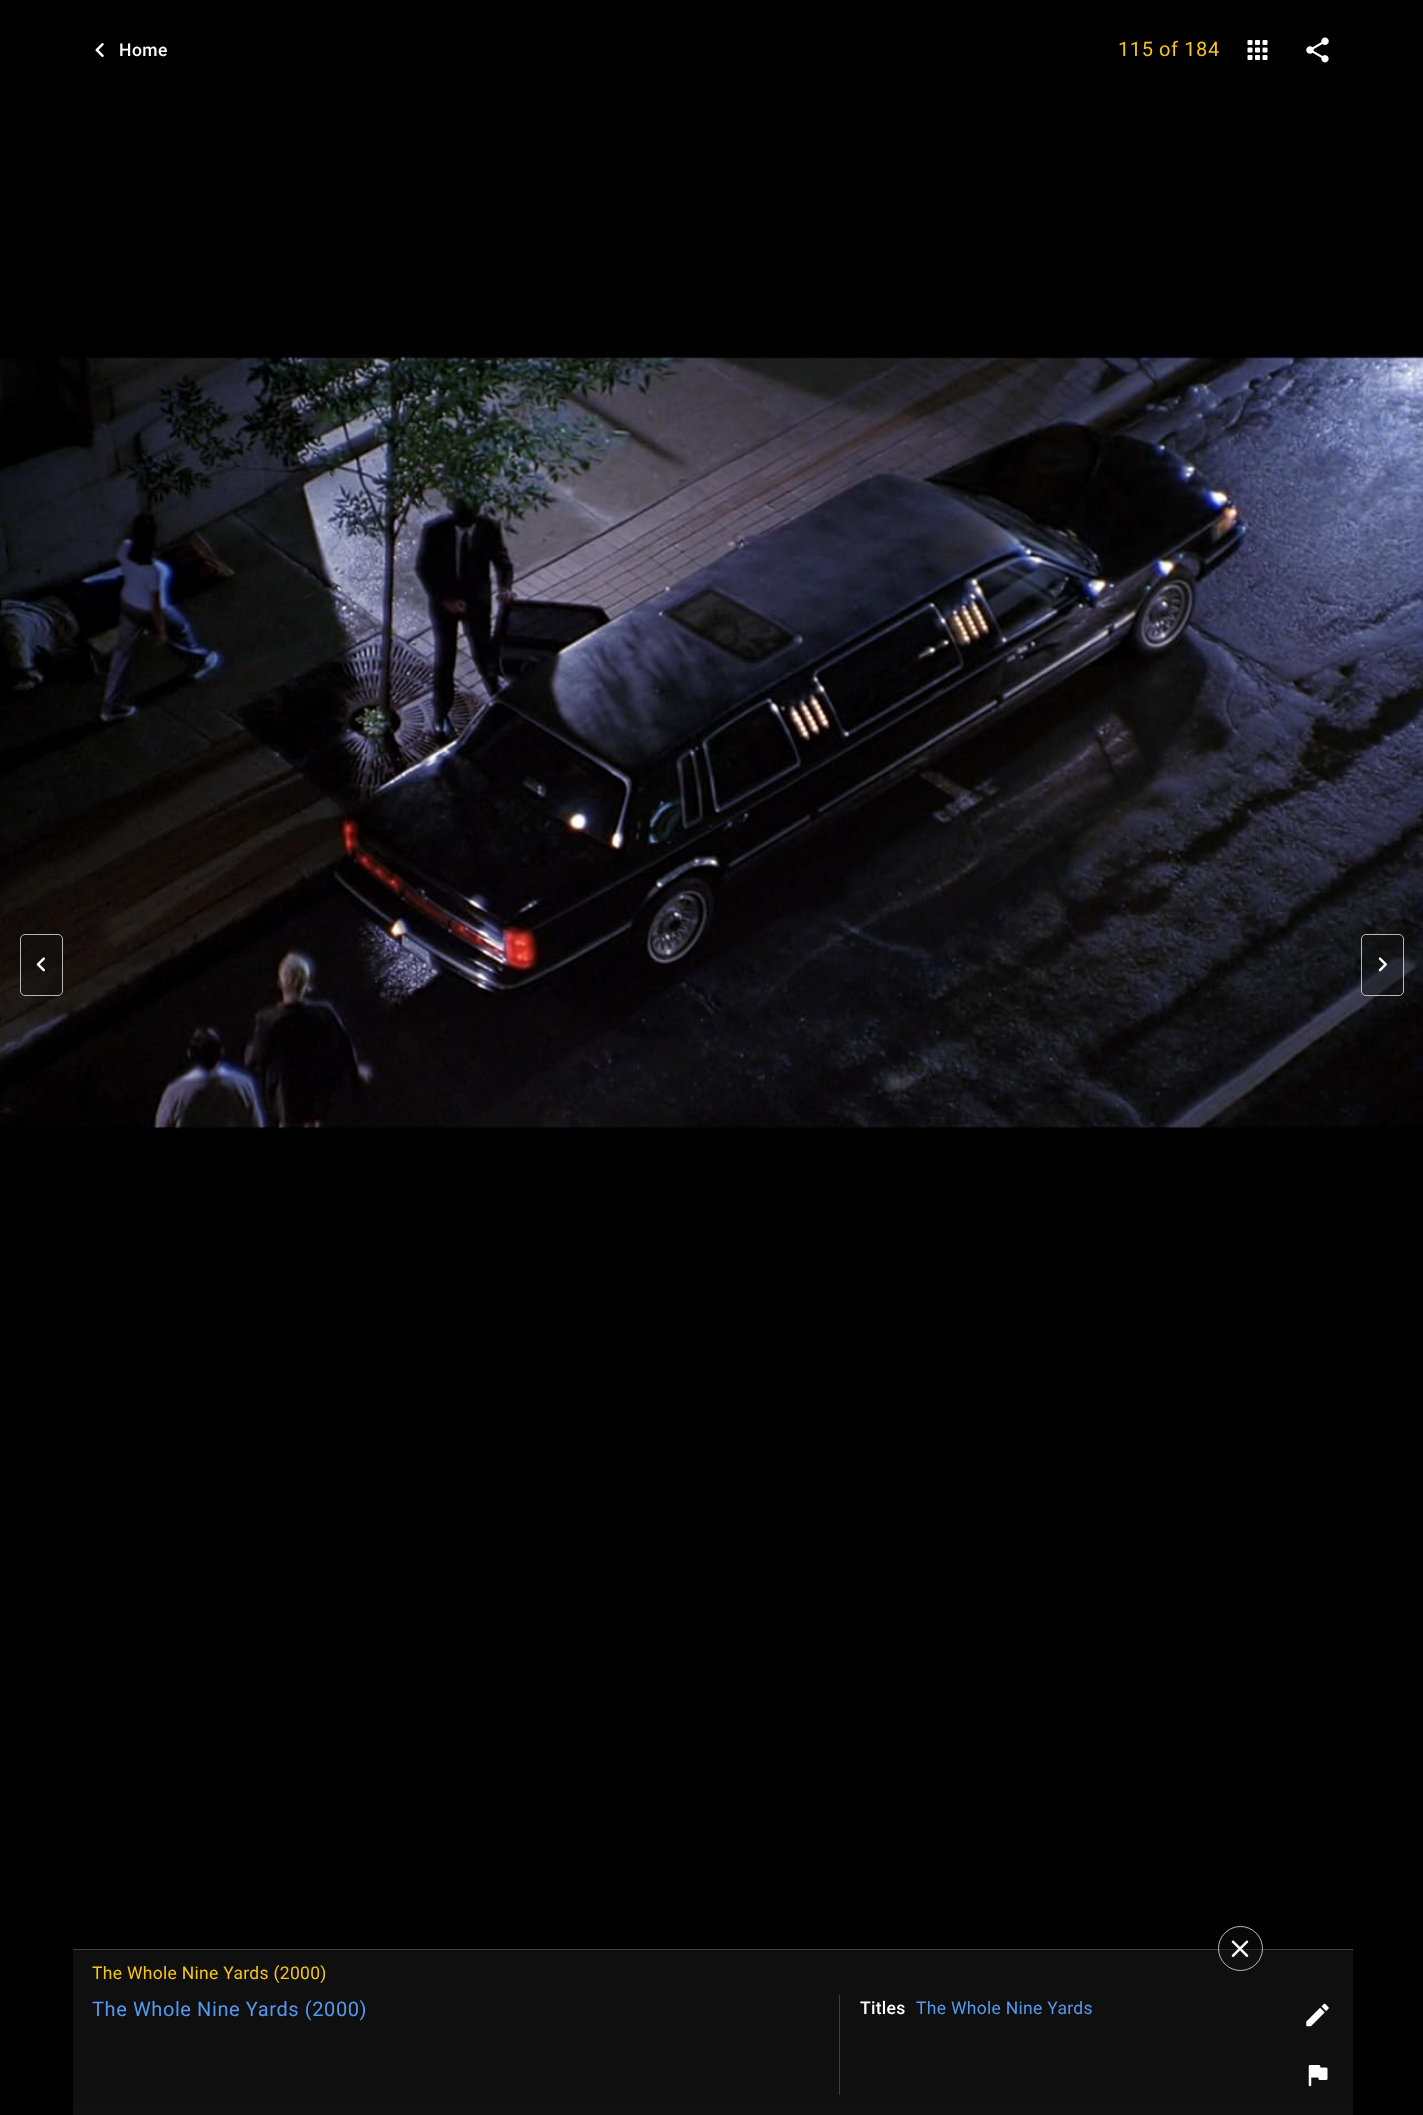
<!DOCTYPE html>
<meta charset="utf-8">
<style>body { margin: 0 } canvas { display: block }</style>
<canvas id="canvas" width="1423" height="2115"></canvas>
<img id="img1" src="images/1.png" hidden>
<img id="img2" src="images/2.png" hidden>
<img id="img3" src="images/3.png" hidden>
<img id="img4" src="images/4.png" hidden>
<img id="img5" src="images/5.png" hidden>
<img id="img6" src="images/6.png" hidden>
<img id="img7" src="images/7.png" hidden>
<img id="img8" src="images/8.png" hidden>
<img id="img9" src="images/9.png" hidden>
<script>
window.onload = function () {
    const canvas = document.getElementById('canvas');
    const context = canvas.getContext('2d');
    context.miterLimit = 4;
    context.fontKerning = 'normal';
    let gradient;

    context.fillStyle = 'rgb(0, 0, 0)';
    context.fillRect(0, 0, 1423, 2115);
    context.drawImage(document.getElementById('img1'), 95, 43, 9, 14);
    context.drawImage(document.getElementById('img2'), 1247, 40, 21, 20);
    context.drawImage(document.getElementById('img3'), 1306, 37, 23, 26);
    context.drawImage(document.getElementById('img4'), 0, 342, 1423, 791);
    context.fillStyle = 'rgba(18, 18, 18, 0.45)';
    context.beginPath();
    context.roundRect(20, 934, 43, 62, 5);
    context.fill();
    context.beginPath();
    context.roundRect(20.5, 934.5, 42, 61, 4.5);
    context.strokeStyle = 'rgba(255, 255, 255, 0.7)';
    context.stroke();
    context.drawImage(document.getElementById('img5'), 36, 957, 9, 15);
    context.beginPath();
    context.roundRect(1361, 934, 43, 62, 5);
    context.fill();
    context.beginPath();
    context.roundRect(1361.5, 934.5, 42, 61, 4.5);
    context.stroke();
    context.drawImage(document.getElementById('img6'), 1378, 957, 9, 15);
    context.fillStyle = 'rgb(15, 15, 15)';
    context.fillRect(73, 1950, 1280, 145);
    context.fillStyle = 'rgb(63, 63, 63)';
    context.fillRect(73, 1949, 1280, 1);
    context.fillStyle = 'rgba(18, 18, 18, 0.45)';
    context.beginPath();
    context.arc(1240.5, 1948.5, 22.5, 0, 2 * Math.PI);
    context.fill();
    context.beginPath();
    context.arc(1240.5, 1948.5, 22, 0, 2 * Math.PI);
    context.stroke();
    context.drawImage(document.getElementById('img7'), 1231, 1940, 18, 17);
    context.fillStyle = 'rgb(63, 63, 63)';
    context.fillRect(839, 1995, 1, 100);
    context.drawImage(document.getElementById('img8'), 1306, 2003, 23, 24);
    context.drawImage(document.getElementById('img9'), 1308, 2065, 20, 22);
    gradient = context.createLinearGradient(713, 2115, 713, 2095);
    gradient.addColorStop(0, 'rgb(18, 18, 18)');
    gradient.addColorStop(1, 'rgb(15, 15, 15)');
    context.fillStyle = gradient;
    context.fillRect(73, 2095, 1280, 20);
    context.letterSpacing = '0.5px';
    context.font = '500 17.5px Roboto';
    context.fillStyle = 'rgb(255, 255, 255)';
    context.fillText('Home', 119, 56);
    context.letterSpacing = '0.6px';
    context.font = '20px Roboto';
    context.fillStyle = 'rgb(245, 197, 24)';
    context.fillText('115 of 184', 1118, 56);
    context.letterSpacing = '0.3px';
    context.font = '17.5px Roboto';
    context.fillText('The Whole Nine Yards (2000)', 92, 1979);
    context.letterSpacing = '0.6px';
    context.font = '20px Roboto';
    context.fillStyle = 'rgb(87, 153, 239)';
    context.fillText('The Whole Nine Yards (2000)', 92, 2016);
    context.letterSpacing = '0.3px';
    context.font = '500 17.5px Roboto';
    context.fillStyle = 'rgb(255, 255, 255)';
    context.fillText('Titles', 860, 2014);
    context.font = '17.5px Roboto';
    context.fillStyle = 'rgb(87, 153, 239)';
    context.fillText('The Whole Nine Yards', 916, 2014);
};
</script>
